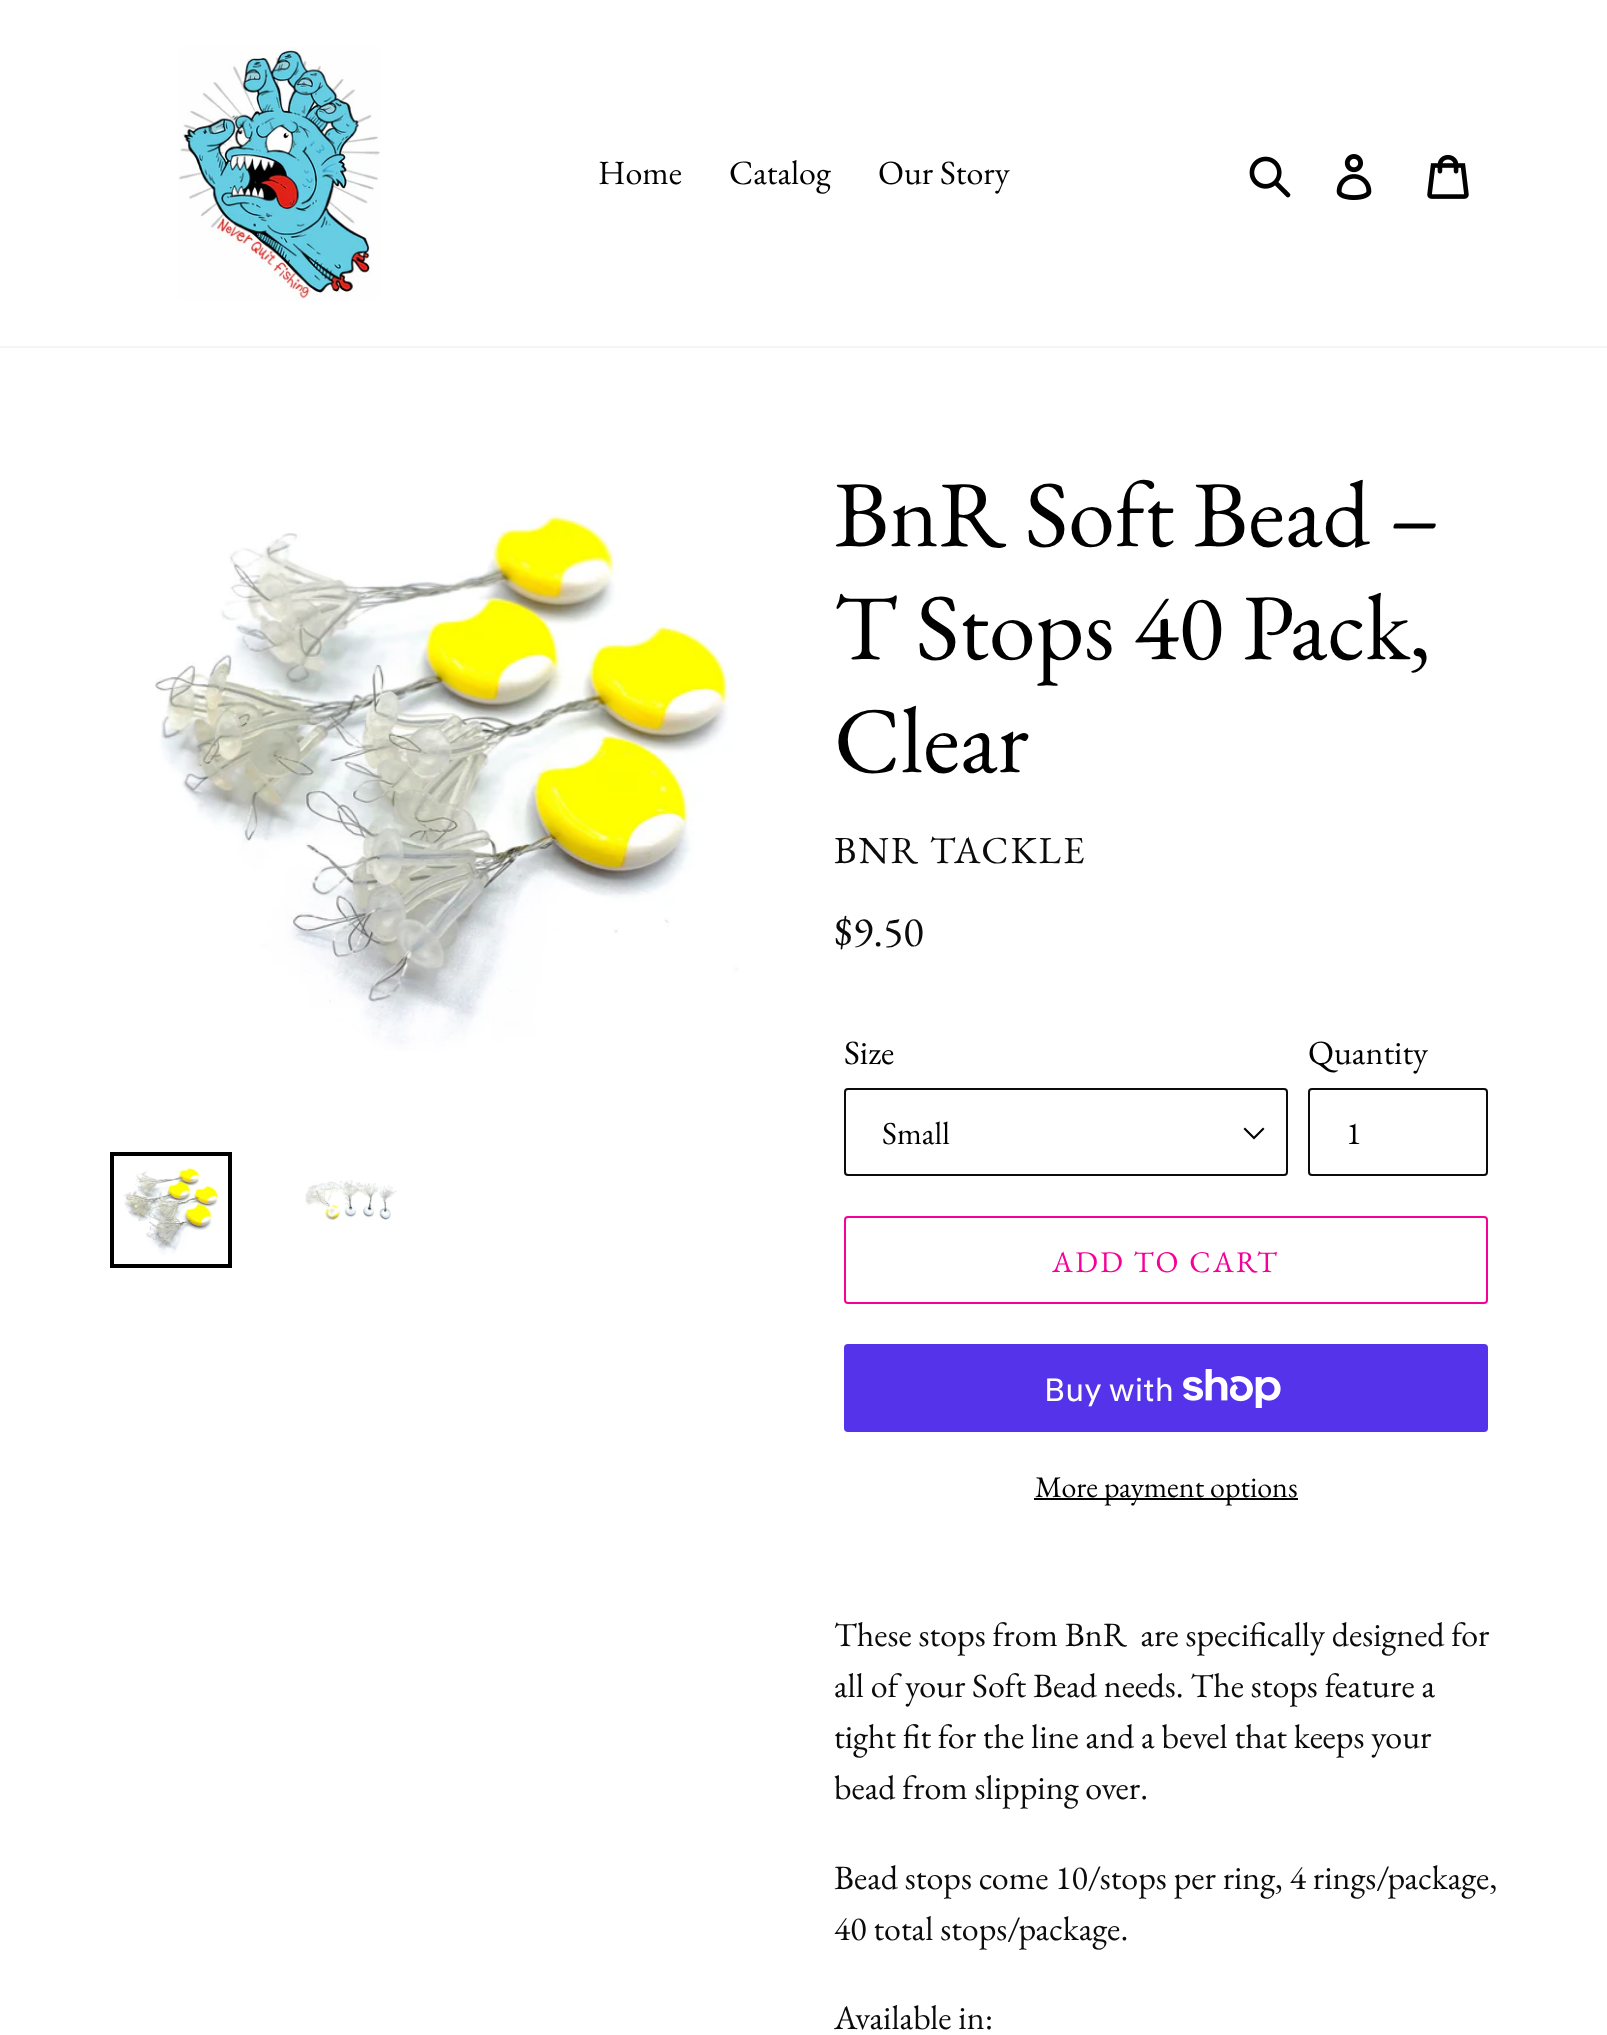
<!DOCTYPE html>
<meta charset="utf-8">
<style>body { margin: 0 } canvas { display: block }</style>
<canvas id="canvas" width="1607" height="2035"></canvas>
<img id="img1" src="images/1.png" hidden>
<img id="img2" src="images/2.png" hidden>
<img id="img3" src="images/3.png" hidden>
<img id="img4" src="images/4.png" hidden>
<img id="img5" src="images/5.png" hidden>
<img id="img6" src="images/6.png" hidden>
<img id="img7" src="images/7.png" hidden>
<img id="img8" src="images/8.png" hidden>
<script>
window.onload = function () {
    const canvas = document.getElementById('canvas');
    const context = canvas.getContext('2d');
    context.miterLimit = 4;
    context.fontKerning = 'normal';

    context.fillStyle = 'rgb(255, 255, 255)';
    context.fillRect(0, 0, 1607, 2035);
    context.fillStyle = 'rgb(245, 245, 245)';
    context.fillRect(0, 346, 1607, 2);
    context.drawImage(document.getElementById('img1'), 178, 46, 202, 254);
    context.drawImage(document.getElementById('img2'), 1249, 156, 42, 42);
    context.drawImage(document.getElementById('img3'), 1336, 154, 36, 46);
    context.drawImage(document.getElementById('img4'), 1427, 154, 42, 45);
    context.drawImage(document.getElementById('img5'), 155, 514, 584, 537);
    context.strokeStyle = 'rgb(0, 0, 0)';
    context.lineWidth = 4;
    context.strokeRect(112, 1154, 118, 112);
    context.drawImage(document.getElementById('img6'), 123, 1167, 96, 88);
    context.drawImage(document.getElementById('img7'), 305, 1180, 92, 41);
    context.fillStyle = 'rgb(0, 0, 0)';
    context.beginPath();
    context.moveTo(1254, 1139.5);
    context.lineTo(1243.5, 1129);
    context.lineTo(1245, 1127.5);
    context.lineTo(1254, 1136.5);
    context.lineTo(1263, 1127.5);
    context.lineTo(1264.5, 1129);
    context.closePath();
    context.fill();
    context.beginPath();
    context.roundRect(845, 1089, 442, 86, 3);
    context.strokeStyle = 'rgb(11, 11, 11)';
    context.lineWidth = 2;
    context.stroke();
    context.beginPath();
    context.roundRect(1309, 1089, 178, 86, 3);
    context.stroke();
    context.beginPath();
    context.roundRect(845, 1217, 642, 86, 3);
    context.strokeStyle = 'rgb(245, 1, 151)';
    context.stroke();
    context.fillStyle = 'rgb(84, 51, 235)';
    context.beginPath();
    context.roundRect(844, 1344, 644, 88, 4);
    context.fill();
    context.drawImage(document.getElementById('img8'), 1183, 1369, 98, 39);
    context.fillStyle = 'rgb(0, 0, 0)';
    context.fillRect(1034, 1498, 264, 2);
    context.font = '34px EB Garamond';
    context.fillText('Home', 598, 184);
    context.fillText('Catalog', 729, 184);
    context.fillText('Our Story', 878, 184);
    context.font = '94px EB Garamond';
    context.fillText('BnR Soft Bead –', 834, 546);
    context.fillText('T Stops 40 Pack,', 834, 659);
    context.fillText('Clear', 834, 772);
    context.letterSpacing = '2px';
    context.font = '38.25px EB Garamond';
    context.fillStyle = 'rgb(11, 11, 11)';
    context.fillText('BNR TACKLE', 834, 863);
    context.letterSpacing = '0px';
    context.font = '42.5px EB Garamond';
    context.fillText('$9.50', 834, 946);
    context.font = '34px EB Garamond';
    context.fillStyle = 'rgb(0, 0, 0)';
    context.fillText('Size', 844, 1064);
    context.font = '32px EB Garamond';
    context.fillText('Small', 882, 1144);
    context.font = '34px EB Garamond';
    context.fillText('Quantity', 1308, 1064);
    context.font = '32px EB Garamond';
    context.fillText('1', 1346, 1144);
    context.letterSpacing = '2.4px';
    context.font = '30px EB Garamond';
    context.fillStyle = 'rgb(245, 1, 151)';
    context.fillText('ADD TO CART', 1052, 1272);
    context.letterSpacing = '0px';
    context.font = '32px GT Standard';
    context.fillStyle = 'rgb(255, 255, 255)';
    context.fillText('Buy with', 1044, 1401);
    context.font = '30px EB Garamond';
    context.fillStyle = 'rgb(0, 0, 0)';
    context.fillText('More payment options', 1035, 1497);
    context.font = '34px EB Garamond';
    context.fillStyle = 'rgb(11, 11, 11)';
    context.fillText('These stops from BnR  are specifically designed for', 834, 1646);
    context.fillText('all of your Soft Bead needs. The stops feature a', 834, 1697);
    context.fillText('tight fit for the line and a bevel that keeps your', 834, 1748);
    context.fillText('bead from slipping over.', 834, 1799);
    context.fillText('Bead stops come 10/stops per ring, 4 rings/package,', 834, 1889);
    context.fillText('40 total stops/package.', 834, 1940);
    context.fillText('Available in:', 834, 2029);
};
</script>
